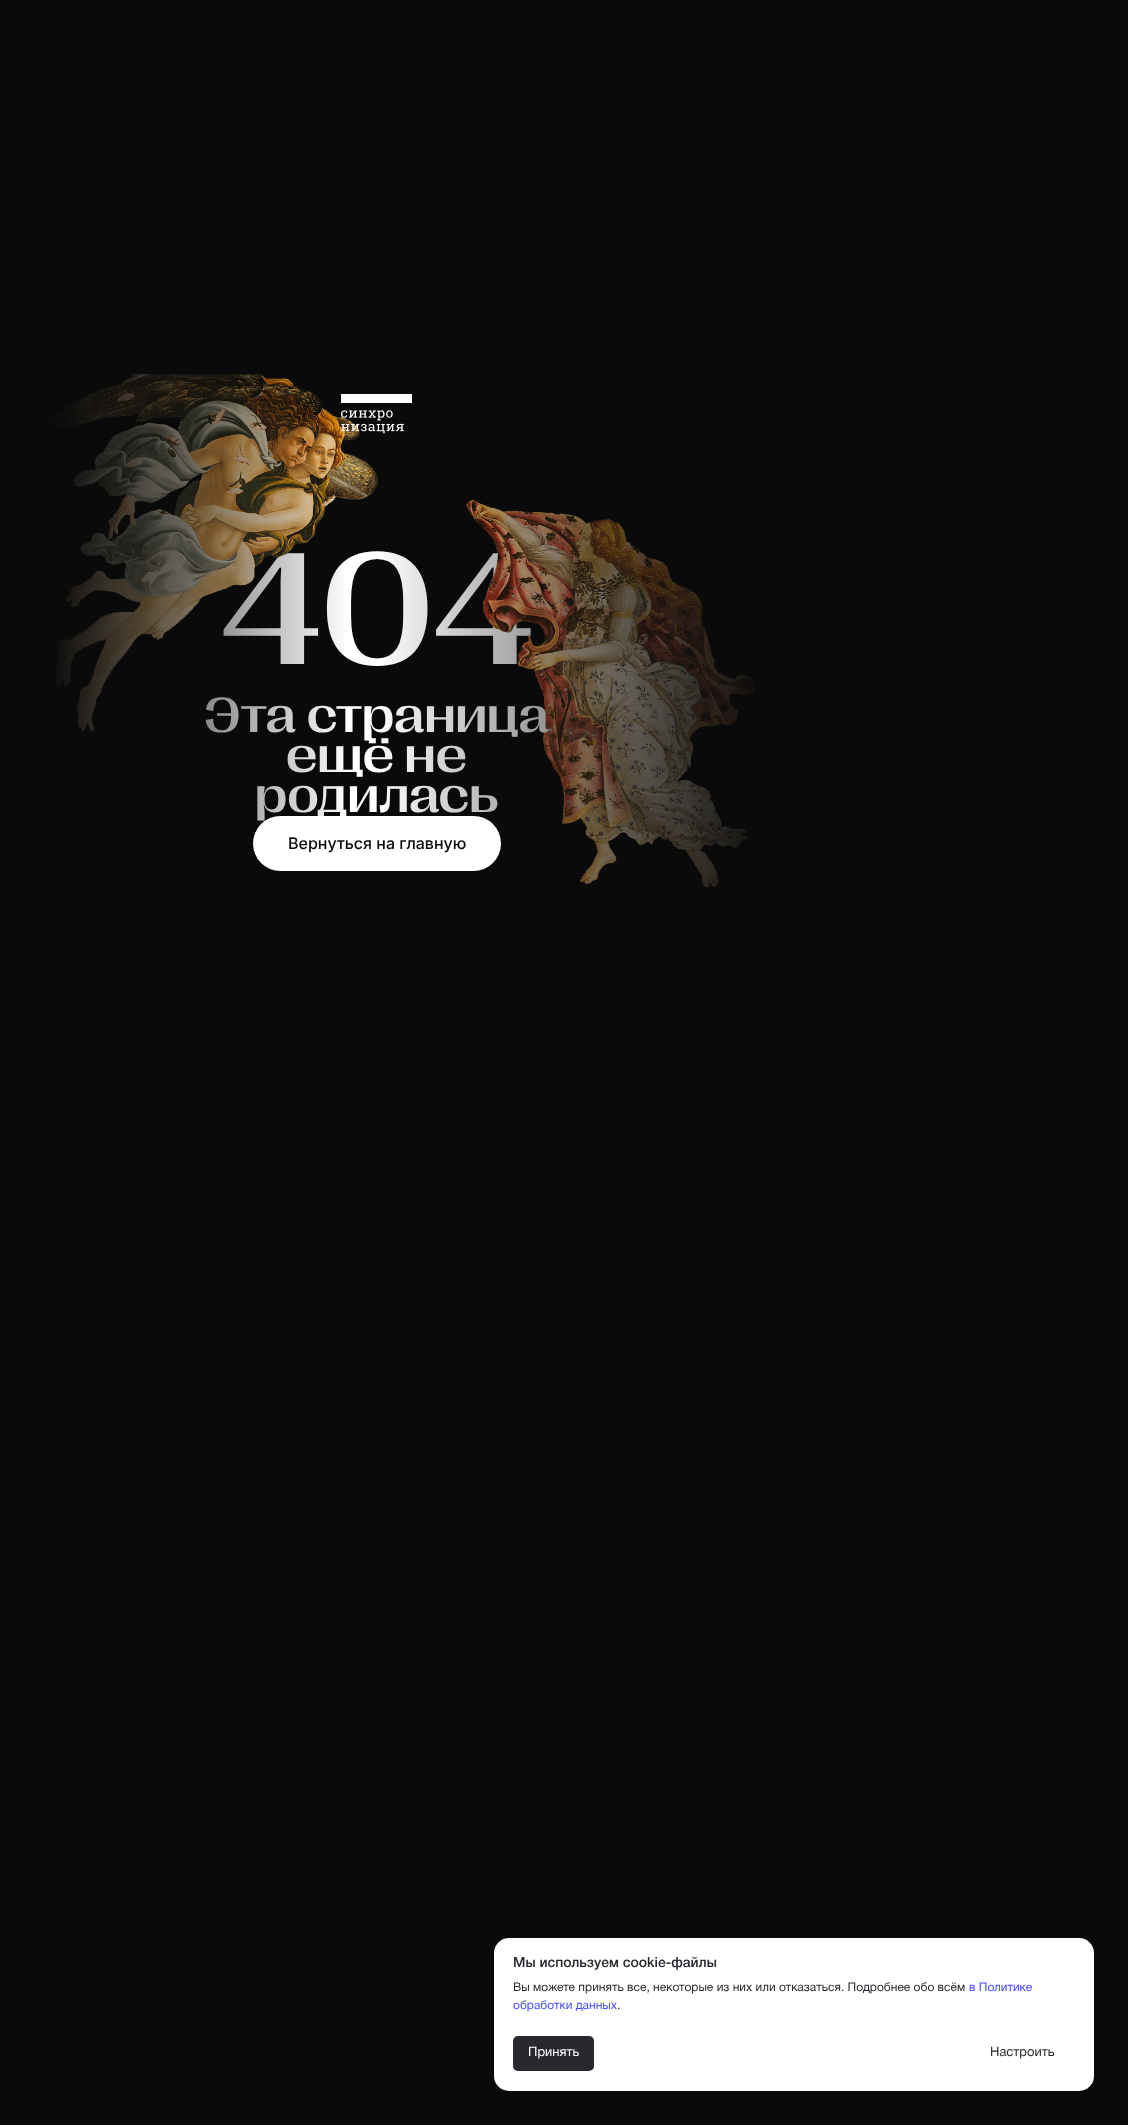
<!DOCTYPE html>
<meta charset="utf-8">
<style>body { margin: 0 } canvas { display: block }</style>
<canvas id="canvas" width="1128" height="2125"></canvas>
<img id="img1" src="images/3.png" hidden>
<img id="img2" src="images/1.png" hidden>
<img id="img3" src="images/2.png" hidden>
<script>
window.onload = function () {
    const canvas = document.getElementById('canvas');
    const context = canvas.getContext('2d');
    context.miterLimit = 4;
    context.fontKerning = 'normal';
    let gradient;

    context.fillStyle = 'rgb(10, 10, 10)';
    context.fillRect(0, 0, 1128, 2125);
    context.fillStyle = 'rgb(255, 255, 255)';
    context.beginPath();
    context.roundRect(494, 1938, 600, 153, 15);
    context.fill();
    context.fillStyle = 'rgb(42, 40, 47)';
    context.beginPath();
    context.roundRect(513, 2036, 81, 35, 5);
    context.fill();
    context.font = '500 162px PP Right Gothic';
    context.fillStyle = 'rgb(255, 255, 255)';
    context.fillText('404', 221, 664);
    context.drawImage(document.getElementById('img1'), 466, 492, 290, 396);
    context.drawImage(document.getElementById('img2'), 50, 374, 328, 358);
    context.font = '500 50px PP Right Gothic';
    context.fillText('Эта страница', 204, 732);
    context.fillText('ещё не', 286, 772);
    context.fillText('родилась', 255, 812);
    gradient = context.createLinearGradient(48, 709, 351, 709);
    gradient.addColorStop(0, 'rgb(10, 10, 10)');
    gradient.addColorStop(1, 'rgba(10, 10, 10, 0)');
    context.fillStyle = gradient;
    context.fillRect(50, 374, 294, 447);
    context.drawImage(document.getElementById('img3'), 341, 394, 71, 40);
    gradient = context.createLinearGradient(770, 709, 375, 709);
    gradient.addColorStop(0, 'rgb(10, 10, 10)');
    gradient.addColorStop(1, 'rgba(10, 10, 10, 0)');
    context.fillStyle = gradient;
    context.fillRect(384, 494, 372, 394);
    context.fillStyle = 'rgb(255, 255, 255)';
    context.beginPath();
    context.roundRect(253, 816, 248, 55, 27.5);
    context.fill();
    context.font = '500 16px Inter';
    context.fillStyle = 'rgb(10, 10, 10)';
    context.fillText('Вернуться на главную', 288, 849);
    context.font = '500 14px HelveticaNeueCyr';
    context.fillStyle = 'rgb(42, 40, 47)';
    context.fillText('Мы используем cookie-файлы', 513, 1967);
    context.font = '12px HelveticaNeueCyr';
    context.fillText('Вы можете принять все, некоторые из них или отказаться. Подробнее обо всём', 513, 1991);
    context.fillStyle = 'rgb(66, 74, 255)';
    context.fillText('в Политике', 969, 1991);
    context.fillText('обработки данных', 513, 2009);
    context.fillStyle = 'rgb(42, 40, 47)';
    context.fillText('.', 617, 2009);
    context.font = '13px HelveticaNeueCyr';
    context.fillStyle = 'rgb(255, 255, 255)';
    context.fillText('Принять', 528, 2056);
    context.fillStyle = 'rgb(42, 40, 47)';
    context.fillText('Настроить', 990, 2056);
};
</script>
